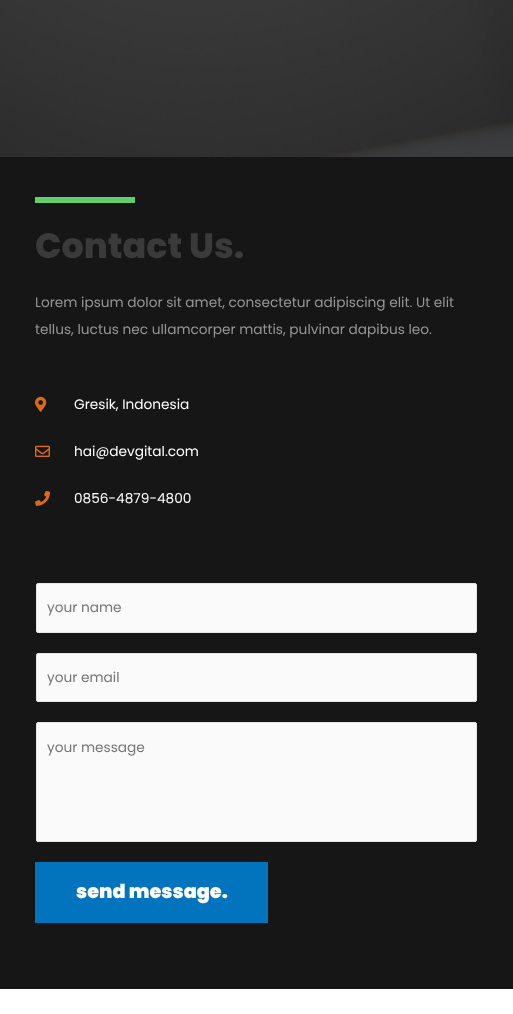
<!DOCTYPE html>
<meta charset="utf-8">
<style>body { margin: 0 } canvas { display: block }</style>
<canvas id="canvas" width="513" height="1014"></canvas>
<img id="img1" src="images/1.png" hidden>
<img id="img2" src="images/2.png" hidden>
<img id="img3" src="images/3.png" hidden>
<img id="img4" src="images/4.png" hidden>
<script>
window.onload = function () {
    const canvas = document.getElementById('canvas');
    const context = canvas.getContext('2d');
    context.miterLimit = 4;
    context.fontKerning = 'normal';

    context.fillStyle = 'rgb(255, 255, 255)';
    context.fillRect(0, 0, 513, 1014);
    context.drawImage(document.getElementById('img1'), 0, 0, 513, 157);
    context.fillStyle = 'rgb(22, 22, 22)';
    context.fillRect(0, 157, 513, 832);
    context.fillStyle = 'rgb(97, 206, 112)';
    context.fillRect(35, 197, 100, 6);
    context.drawImage(document.getElementById('img2'), 35, 396, 12, 16);
    context.drawImage(document.getElementById('img3'), 35, 445, 15, 12);
    context.drawImage(document.getElementById('img4'), 35, 490, 15, 16);
    context.fillStyle = 'rgb(250, 250, 250)';
    context.beginPath();
    context.roundRect(36.5, 583.5, 440, 49, 1.5);
    context.fill();
    context.strokeStyle = 'rgb(229, 229, 229)';
    context.stroke();
    context.beginPath();
    context.roundRect(36.5, 653.5, 440, 48, 1.5);
    context.fill();
    context.stroke();
    context.beginPath();
    context.roundRect(36.5, 722.5, 440, 119, 1.5);
    context.fill();
    context.stroke();
    context.fillStyle = 'rgb(2, 116, 190)';
    context.fillRect(35, 862, 233, 61);
    context.font = '800 35px Poppins';
    context.fillStyle = 'rgb(58, 58, 58)';
    context.fillText('Contact Us.', 35, 258);
    context.font = '13.7px Poppins';
    context.fillStyle = 'rgb(150, 150, 150)';
    context.fillText('Lorem ipsum dolor sit amet, consectetur adipiscing elit. Ut elit', 35, 307);
    context.fillText('tellus, luctus nec ullamcorper mattis, pulvinar dapibus leo.', 35, 334);
    context.fillStyle = 'rgb(255, 255, 255)';
    context.fillText('Gresik, Indonesia', 74, 409);
    context.fillText('hai@devgital.com', 74, 456);
    context.fillText('0856-4879-4800', 74, 503);
    context.fillStyle = 'rgb(117, 117, 117)';
    context.fillText('your name', 47, 612);
    context.fillText('your email', 47, 682);
    context.fillText('your message', 47, 752);
    context.font = '900 19.25px Poppins';
    context.fillStyle = 'rgb(255, 255, 255)';
    context.fillText('send message.', 76, 898);
};
</script>
